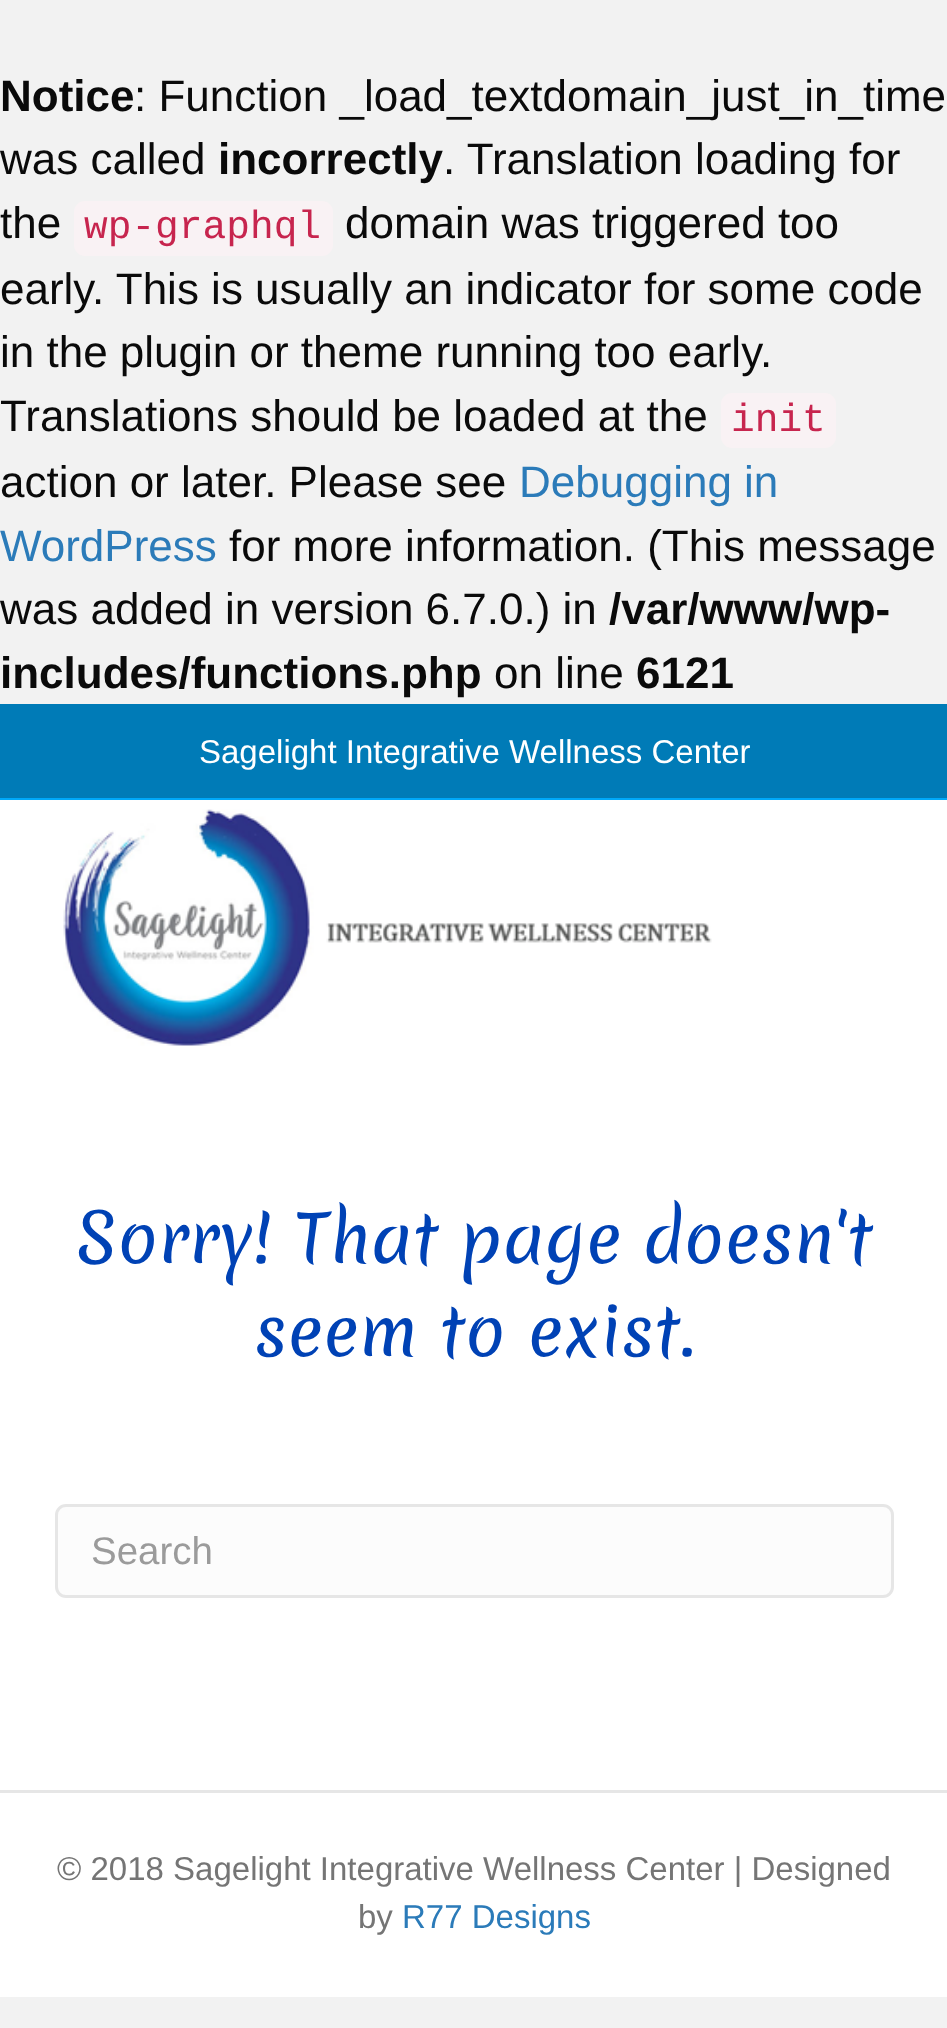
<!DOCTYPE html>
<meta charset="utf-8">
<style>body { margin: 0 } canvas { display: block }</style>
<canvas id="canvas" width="947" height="2028"></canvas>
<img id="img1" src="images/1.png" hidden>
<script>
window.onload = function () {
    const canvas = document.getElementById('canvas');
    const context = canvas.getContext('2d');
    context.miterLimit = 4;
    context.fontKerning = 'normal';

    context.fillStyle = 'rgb(242, 242, 242)';
    context.fillRect(0, 0, 947, 2028);
    context.fillStyle = 'rgb(249, 242, 244)';
    context.beginPath();
    context.roundRect(74, 201, 259, 55, 11);
    context.fill();
    context.beginPath();
    context.roundRect(721, 393, 115, 55, 11);
    context.fill();
    context.fillStyle = 'rgb(0, 123, 183)';
    context.fillRect(0, 704, 947, 94);
    context.fillStyle = 'rgb(0, 168, 249)';
    context.fillRect(0, 798, 947, 2);
    context.fillStyle = 'rgb(255, 255, 255)';
    context.fillRect(0, 800, 947, 990);
    context.drawImage(document.getElementById('img1'), 63, 809, 649, 237);
    context.fillStyle = 'rgb(252, 252, 252)';
    context.beginPath();
    context.roundRect(56.5, 1505.5, 836, 91, 9.5);
    context.fill();
    context.strokeStyle = 'rgb(230, 230, 230)';
    context.lineWidth = 3;
    context.stroke();
    context.fillStyle = 'rgb(255, 255, 255)';
    context.fillRect(0, 1793, 947, 204);
    context.fillStyle = 'rgb(230, 230, 230)';
    context.fillRect(0, 1790, 947, 3);
    context.font = 'bold 44px Liberation Sans';
    context.fillStyle = 'rgb(10, 10, 10)';
    context.fillText('Notice', 0, 111);
    context.font = '44px Liberation Sans';
    context.fillText(': Function _load_textdomain_just_in_time', 134, 111);
    context.fillText('was called', 0, 174);
    context.font = 'bold 44px Liberation Sans';
    context.fillText('incorrectly', 218, 174);
    context.font = '44px Liberation Sans';
    context.fillText('. Translation loading for', 443, 174);
    context.fillText('the', 0, 238);
    context.font = '39.5px Liberation Mono';
    context.fillStyle = 'rgb(199, 37, 78)';
    context.fillText('wp-graphql', 84, 238);
    context.font = '44px Liberation Sans';
    context.fillStyle = 'rgb(10, 10, 10)';
    context.fillText('domain was triggered too', 345, 238);
    context.fillText('early. This is usually an indicator for some code', 0, 304);
    context.fillText('in the plugin or theme running too early.', 0, 367);
    context.fillText('Translations should be loaded at the', 0, 431);
    context.font = '39.5px Liberation Mono';
    context.fillStyle = 'rgb(199, 37, 78)';
    context.fillText('init', 731, 431);
    context.font = '44px Liberation Sans';
    context.fillStyle = 'rgb(10, 10, 10)';
    context.fillText('action or later. Please see', 0, 497);
    context.fillStyle = 'rgb(43, 123, 185)';
    context.fillText('Debugging in', 519, 497);
    context.fillText('WordPress', 0, 561);
    context.fillStyle = 'rgb(10, 10, 10)';
    context.fillText('for more information. (This message', 229, 561);
    context.fillText('was added in version 6.7.0.) in', 0, 624);
    context.font = 'bold 44px Liberation Sans';
    context.fillText('/var/www/wp-', 609, 624);
    context.fillText('includes/functions.php', 0, 688);
    context.font = '44px Liberation Sans';
    context.fillText('on line', 494, 688);
    context.font = 'bold 44px Liberation Sans';
    context.fillText('6121', 636, 688);
    context.font = '33px Liberation Sans';
    context.fillStyle = 'rgb(255, 255, 255)';
    context.fillText('Sagelight Integrative Wellness Center', 199, 763);
    context.font = '66px Merienda';
    context.fillStyle = 'rgb(0, 66, 181)';
    context.fillText('Sorry! That page doesn\'t', 76, 1263);
    context.fillText('seem to exist.', 254, 1356);
    context.font = '38.5px Liberation Sans';
    context.fillStyle = 'rgb(155, 155, 155)';
    context.fillText('Search', 91, 1564);
    context.font = '33px Liberation Sans';
    context.fillStyle = 'rgb(117, 117, 117)';
    context.fillText('© 2018 Sagelight Integrative Wellness Center | Designed', 57, 1880);
    context.fillText('by', 358, 1928);
    context.fillStyle = 'rgb(43, 123, 185)';
    context.fillText('R77 Designs', 402, 1928);
};
</script>
